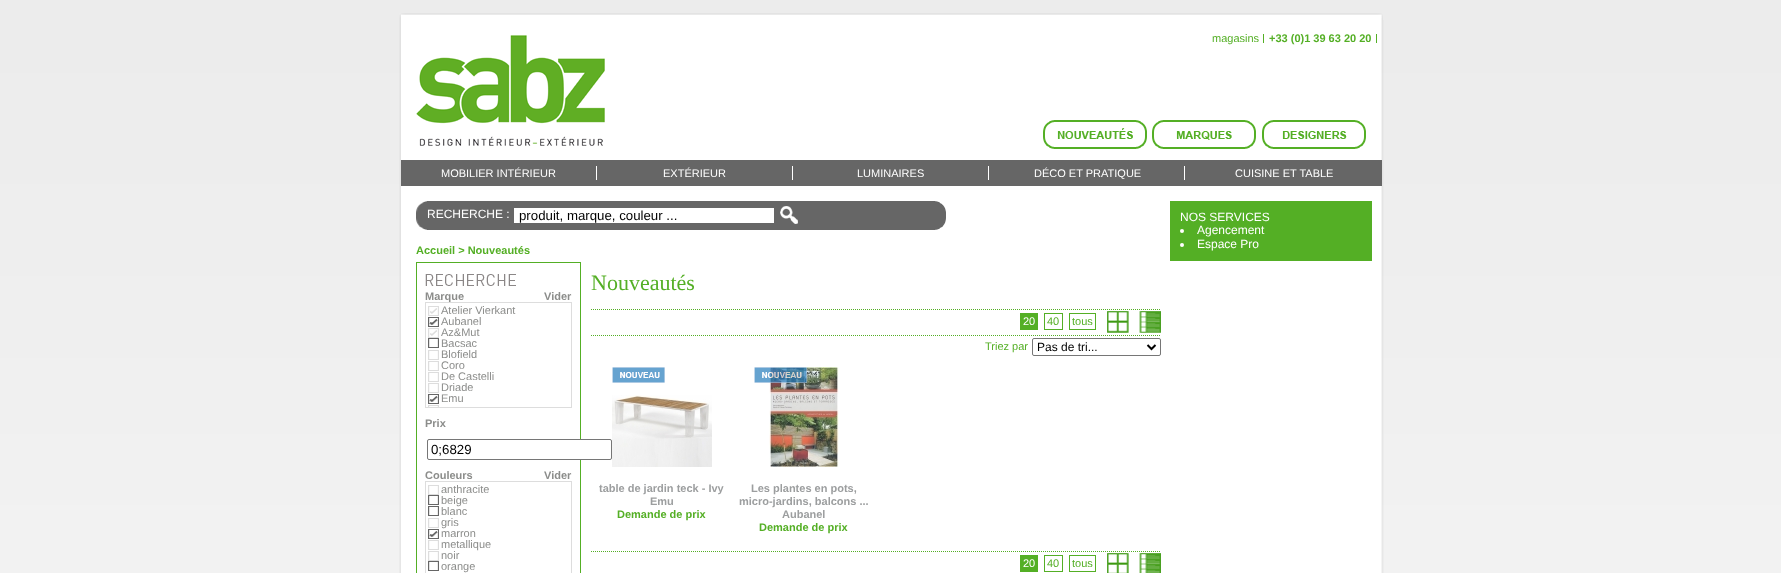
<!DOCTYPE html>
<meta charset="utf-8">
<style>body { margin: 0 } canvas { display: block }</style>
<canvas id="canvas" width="1781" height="573"></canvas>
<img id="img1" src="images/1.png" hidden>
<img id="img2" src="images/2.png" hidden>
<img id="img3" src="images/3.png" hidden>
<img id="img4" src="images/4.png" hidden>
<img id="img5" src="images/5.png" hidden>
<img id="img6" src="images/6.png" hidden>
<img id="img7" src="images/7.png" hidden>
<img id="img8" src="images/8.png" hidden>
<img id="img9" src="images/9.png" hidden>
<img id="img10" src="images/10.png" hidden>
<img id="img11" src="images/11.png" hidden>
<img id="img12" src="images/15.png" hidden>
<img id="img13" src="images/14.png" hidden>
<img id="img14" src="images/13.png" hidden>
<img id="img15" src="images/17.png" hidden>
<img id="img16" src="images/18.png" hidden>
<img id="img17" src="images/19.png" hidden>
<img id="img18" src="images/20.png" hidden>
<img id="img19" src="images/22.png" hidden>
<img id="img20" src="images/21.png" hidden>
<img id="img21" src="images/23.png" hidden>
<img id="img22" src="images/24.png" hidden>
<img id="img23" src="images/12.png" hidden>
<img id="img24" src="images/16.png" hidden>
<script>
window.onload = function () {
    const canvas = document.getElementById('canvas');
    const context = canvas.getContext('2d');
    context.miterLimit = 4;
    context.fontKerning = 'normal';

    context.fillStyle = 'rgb(255, 255, 255)';
    context.fillRect(0, 0, 1781, 573);
    context.drawImage(document.getElementById('img1'), 0, 0, 1781, 573);
    context.drawImage(document.getElementById('img2'), 399, 13, 984, 7);
    context.drawImage(document.getElementById('img3'), 399, 20, 985, 553);
    context.drawImage(document.getElementById('img4'), 416, 35, 189, 111);
    context.fillStyle = 'rgb(84, 175, 37)';
    context.fillRect(1263, 34, 1, 9);
    context.fillRect(1376, 34, 1, 9);
    context.drawImage(document.getElementById('img5'), 1043, 120, 104, 29);
    context.drawImage(document.getElementById('img6'), 1152, 120, 104, 29);
    context.drawImage(document.getElementById('img7'), 1262, 120, 104, 29);
    context.fillStyle = 'rgb(102, 102, 102)';
    context.fillRect(401, 160, 981, 26);
    context.fillStyle = 'rgb(255, 255, 255)';
    context.fillRect(596, 166, 1, 14);
    context.fillRect(792, 166, 1, 14);
    context.fillRect(988, 166, 1, 14);
    context.fillRect(1184, 166, 1, 14);
    context.drawImage(document.getElementById('img8'), 416, 201, 11, 29);
    context.drawImage(document.getElementById('img9'), 935, 201, 11, 29);
    context.fillStyle = 'rgb(102, 102, 102)';
    context.fillRect(427, 201, 508, 29);
    context.fillStyle = 'rgb(255, 255, 255)';
    context.fillRect(514, 208, 260, 15);
    context.drawImage(document.getElementById('img10'), 780, 206, 18, 18);
    context.strokeStyle = 'rgb(84, 175, 37)';
    context.strokeRect(416.5, 262.5, 164, 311);
    context.drawImage(document.getElementById('img11'), 425, 274, 91, 12);
    context.beginPath();
    context.roundRect(427.5, 439.5, 184, 20, 1.5);
    context.fill();
    context.strokeStyle = 'rgb(118, 118, 118)';
    context.stroke();
    context.strokeStyle = 'rgb(221, 221, 221)';
    context.strokeRect(425.5, 481.5, 146, 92);
    context.drawImage(document.getElementById('img12'), 428, 485, 11, 10);
    context.drawImage(document.getElementById('img13'), 428, 495, 11, 10);
    context.drawImage(document.getElementById('img13'), 428, 506, 11, 10);
    context.drawImage(document.getElementById('img12'), 428, 518, 11, 10);
    context.drawImage(document.getElementById('img14'), 428, 529, 11, 10);
    context.drawImage(document.getElementById('img12'), 428, 540, 11, 10);
    context.drawImage(document.getElementById('img12'), 428, 551, 11, 10);
    context.drawImage(document.getElementById('img13'), 428, 561, 11, 10);
    context.beginPath();
    context.moveTo(591, 309.5);
    context.lineTo(1161, 309.5);
    context.strokeStyle = 'rgb(84, 175, 37)';
    context.setLineDash([1, 1]);
    context.stroke();
    context.beginPath();
    context.moveTo(591, 335.5);
    context.lineTo(1161, 335.5);
    context.stroke();
    context.fillStyle = 'rgb(84, 175, 37)';
    context.fillRect(1020, 313, 18, 17);
    context.setLineDash([]);
    context.strokeRect(1044.5, 313.5, 18, 16);
    context.strokeRect(1069.5, 313.5, 26, 16);
    context.drawImage(document.getElementById('img15'), 1107, 311, 22, 22);
    context.drawImage(document.getElementById('img16'), 1139, 311, 22, 22);
    context.beginPath();
    context.roundRect(1032.5, 338.5, 128, 17, 1.5);
    context.strokeStyle = 'rgb(118, 118, 118)';
    context.stroke();
    context.beginPath();
    context.moveTo(1147.5, 345);
    context.lineTo(1151.5, 349);
    context.lineTo(1155.5, 345);
    context.strokeStyle = 'rgb(0, 0, 0)';
    context.lineWidth = 2;
    context.stroke();
    context.drawImage(document.getElementById('img17'), 612, 367, 53, 16);
    context.drawImage(document.getElementById('img18'), 612, 395, 100, 72);
    context.drawImage(document.getElementById('img19'), 769, 367, 70, 100);
    context.drawImage(document.getElementById('img20'), 754, 367, 53, 16);
    context.beginPath();
    context.moveTo(591, 551.5);
    context.lineTo(1161, 551.5);
    context.strokeStyle = 'rgb(84, 175, 37)';
    context.lineWidth = 1;
    context.setLineDash([1, 1]);
    context.stroke();
    context.fillRect(1020, 555, 18, 17);
    context.setLineDash([]);
    context.strokeRect(1044.5, 555.5, 18, 16);
    context.strokeRect(1069.5, 555.5, 26, 16);
    context.drawImage(document.getElementById('img21'), 1107, 553, 22, 20);
    context.drawImage(document.getElementById('img22'), 1139, 553, 22, 20);
    context.fillRect(1170, 201, 202, 60);
    context.fillStyle = 'rgb(255, 255, 255)';
    context.beginPath();
    context.arc(1182, 231, 2, 0, 2 * Math.PI);
    context.fill();
    context.beginPath();
    context.arc(1182, 245, 2, 0, 2 * Math.PI);
    context.fill();
    context.font = '11px Liberation Sans';
    context.fillStyle = 'rgb(84, 175, 37)';
    context.fillText('magasins', 1212, 42);
    context.font = 'bold 11px Liberation Sans';
    context.fillText('+33 (0)1 39 63 20 20', 1269, 42);
    context.font = '11px Liberation Sans';
    context.fillStyle = 'rgb(255, 255, 255)';
    context.fillText('MOBILIER INTÉRIEUR', 441, 177);
    context.fillText('EXTÉRIEUR', 663, 177);
    context.fillText('LUMINAIRES', 857, 177);
    context.fillText('DÉCO ET PRATIQUE', 1034, 177);
    context.fillText('CUISINE ET TABLE', 1235, 177);
    context.font = '12px Liberation Sans';
    context.fillText('RECHERCHE :', 427, 218);
    context.font = '13.25px Liberation Sans';
    context.fillStyle = 'rgb(0, 0, 0)';
    context.fillText('produit, marque, couleur ...', 519, 220);
    context.font = 'bold 11px Liberation Sans';
    context.fillStyle = 'rgb(84, 175, 37)';
    context.fillText('Accueil > Nouveautés', 416, 254);
    context.font = '22px Liberation Serif';
    context.fillText('Nouveautés', 591, 290);
    context.font = 'bold 11px Liberation Sans';
    context.fillStyle = 'rgb(140, 141, 139)';
    context.fillText('Marque', 425, 300);
    context.fillText('Vider', 544, 300);
    context.strokeStyle = 'rgb(221, 221, 221)';
    context.strokeRect(425.5, 302.5, 146, 105);
    context.drawImage(document.getElementById('img23'), 428, 306, 11, 10);
    context.font = '11px Liberation Sans';
    context.fillText('Atelier Vierkant', 441, 314);
    context.drawImage(document.getElementById('img14'), 428, 317, 11, 10);
    context.fillText('Aubanel', 441, 325);
    context.drawImage(document.getElementById('img23'), 428, 328, 11, 10);
    context.fillText('Az&Mut', 441, 336);
    context.drawImage(document.getElementById('img13'), 428, 338, 11, 10);
    context.fillText('Bacsac', 441, 347);
    context.drawImage(document.getElementById('img12'), 428, 350, 11, 10);
    context.fillText('Blofield', 441, 358);
    context.drawImage(document.getElementById('img12'), 428, 361, 11, 10);
    context.fillText('Coro', 441, 369);
    context.drawImage(document.getElementById('img12'), 428, 372, 11, 10);
    context.fillText('De Castelli', 441, 380);
    context.drawImage(document.getElementById('img12'), 428, 383, 11, 10);
    context.fillText('Driade', 441, 391);
    context.drawImage(document.getElementById('img14'), 428, 394, 11, 10);
    context.fillText('Emu', 441, 402);
    context.drawImage(document.getElementById('img24'), 428, 405, 11, 2);
    context.font = 'bold 11px Liberation Sans';
    context.fillText('Prix', 425, 427);
    context.font = '13.25px Liberation Sans';
    context.fillStyle = 'rgb(0, 0, 0)';
    context.fillText('0;6829', 431, 454);
    context.font = 'bold 11px Liberation Sans';
    context.fillStyle = 'rgb(140, 141, 139)';
    context.fillText('Couleurs', 425, 479);
    context.fillText('Vider', 544, 479);
    context.font = '11px Liberation Sans';
    context.fillText('anthracite', 441, 493);
    context.fillText('beige', 441, 504);
    context.fillText('blanc', 441, 515);
    context.fillText('gris', 441, 526);
    context.fillText('marron', 441, 537);
    context.fillText('metallique', 441, 548);
    context.fillText('noir', 441, 559);
    context.fillText('orange', 441, 570);
    context.fillStyle = 'rgb(255, 255, 255)';
    context.fillText('20', 1023, 325);
    context.fillStyle = 'rgb(84, 175, 37)';
    context.fillText('40', 1047, 325);
    context.fillText('tous', 1072, 325);
    context.fillText('Triez par', 985, 350);
    context.font = '12px Liberation Sans';
    context.fillStyle = 'rgb(0, 0, 0)';
    context.fillText('Pas de tri...', 1037, 351);
    context.font = 'bold 11px Liberation Sans';
    context.fillStyle = 'rgb(156, 158, 159)';
    context.fillText('table de jardin teck - Ivy', 599, 492);
    context.fillText('Emu', 650, 505);
    context.fillStyle = 'rgb(84, 175, 37)';
    context.fillText('Demande de prix', 617, 518);
    context.fillStyle = 'rgb(156, 158, 159)';
    context.fillText('Les plantes en pots,', 751, 492);
    context.fillText('micro-jardins, balcons ...', 739, 505);
    context.fillText('Aubanel', 782, 518);
    context.fillStyle = 'rgb(84, 175, 37)';
    context.fillText('Demande de prix', 759, 531);
    context.font = '11px Liberation Sans';
    context.fillStyle = 'rgb(255, 255, 255)';
    context.fillText('20', 1023, 567);
    context.fillStyle = 'rgb(84, 175, 37)';
    context.fillText('40', 1047, 567);
    context.fillText('tous', 1072, 567);
    context.font = '12px Liberation Sans';
    context.fillStyle = 'rgb(255, 255, 255)';
    context.fillText('NOS SERVICES', 1180, 221);
    context.fillText('Agencement', 1197, 234);
    context.fillText('Espace Pro', 1197, 248);
};
</script>
